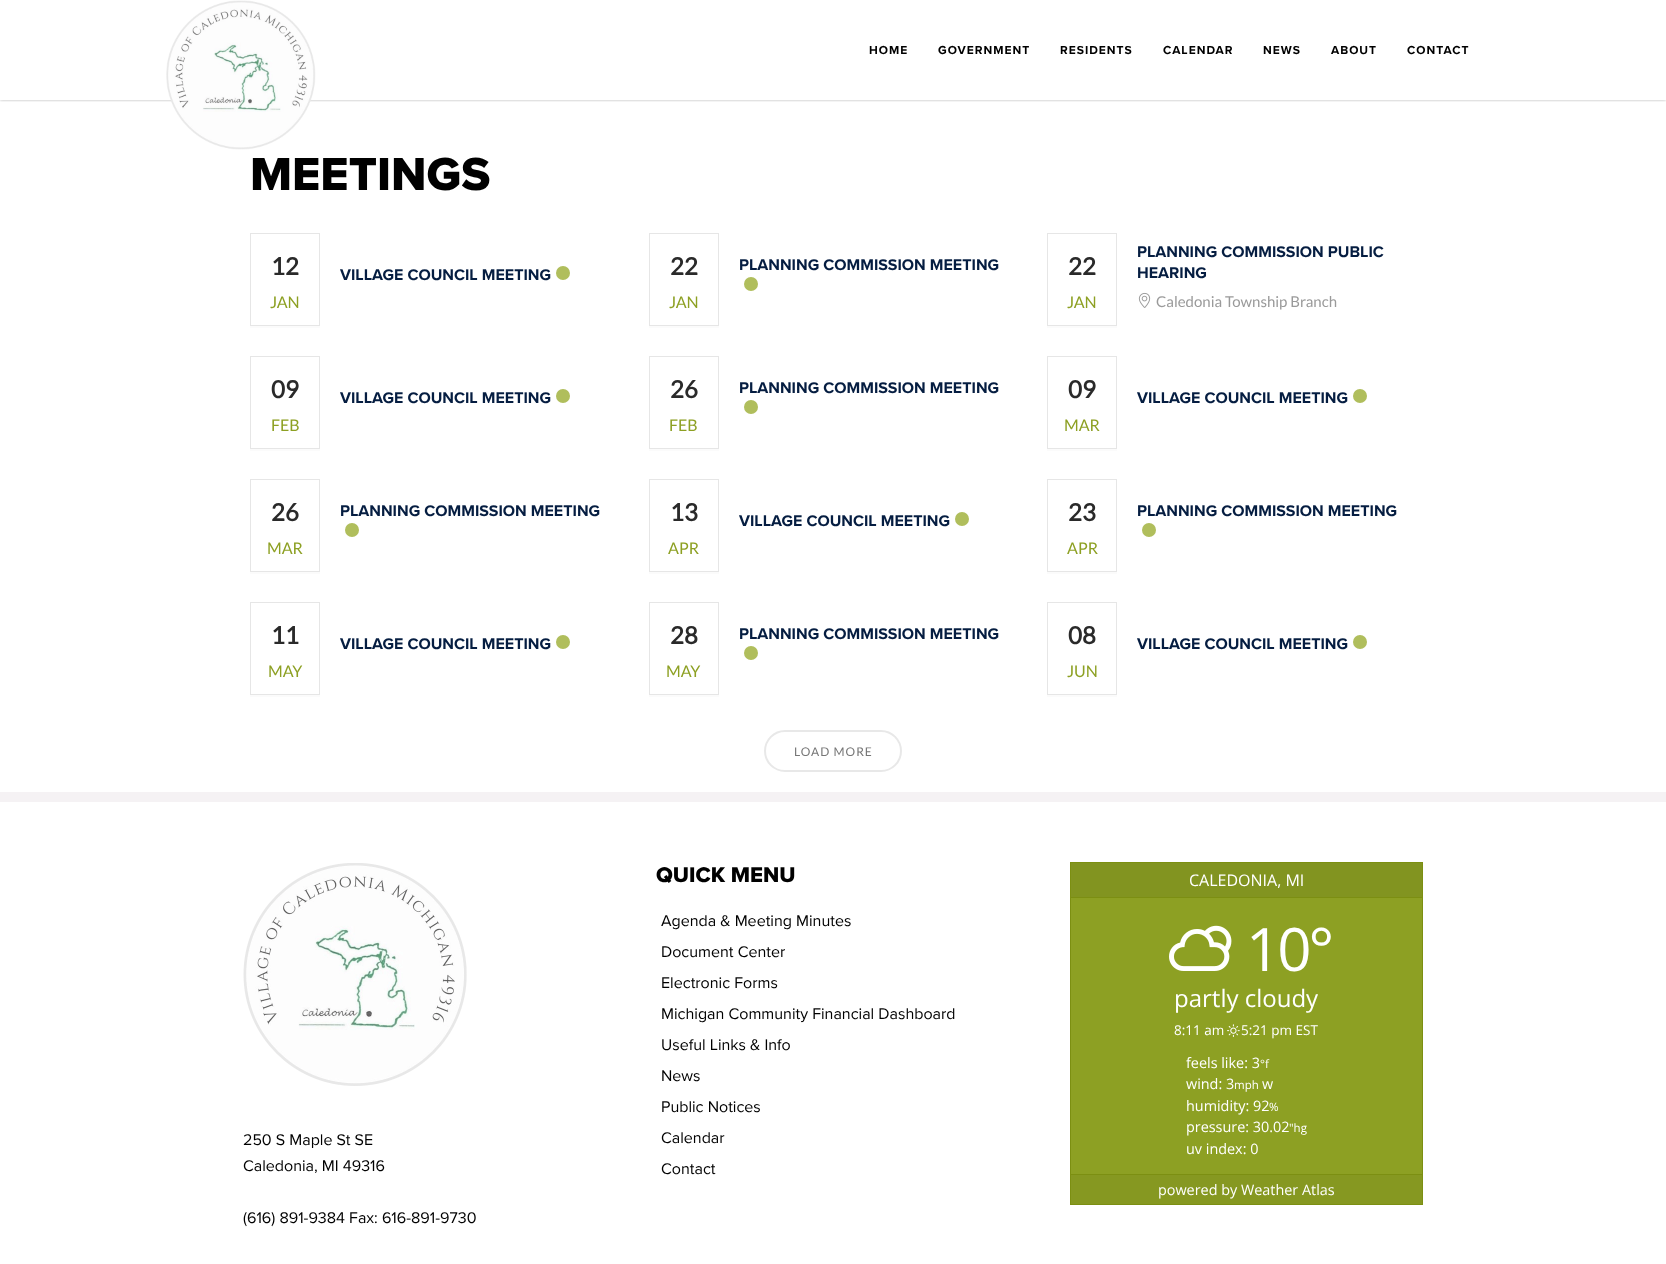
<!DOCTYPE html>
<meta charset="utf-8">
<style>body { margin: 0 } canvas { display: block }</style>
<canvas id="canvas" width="1666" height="1264"></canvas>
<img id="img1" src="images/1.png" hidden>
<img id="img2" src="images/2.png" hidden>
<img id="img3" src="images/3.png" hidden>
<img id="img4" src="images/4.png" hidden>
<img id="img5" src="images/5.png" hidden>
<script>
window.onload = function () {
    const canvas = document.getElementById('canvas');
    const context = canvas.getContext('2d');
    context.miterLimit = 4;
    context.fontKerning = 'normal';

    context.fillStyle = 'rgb(255, 255, 255)';
    context.fillRect(0, 0, 1666, 1264);
    context.save();
    context.beginPath();
    context.rect(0, 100, 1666, 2);
    context.clip();
    context.fillStyle = 'rgba(0, 0, 0, 0.3)';
    context.filter = 'blur(1.5px)';
    context.beginPath();
    context.rect(0, 0, 1666, 100);
    context.fill();
    context.filter = 'none';
    context.restore();
    context.drawImage(document.getElementById('img1'), 166, 0, 150, 150);
    context.fillStyle = 'rgb(251, 251, 251)';
    context.fillRect(250, 326, 70, 2);
    context.strokeStyle = 'rgb(230, 230, 230)';
    context.strokeRect(250.5, 233.5, 69, 92);
    context.fillStyle = 'rgb(176, 190, 92)';
    context.beginPath();
    context.arc(563, 273, 7, 0, 2 * Math.PI);
    context.fill();
    context.fillStyle = 'rgb(251, 251, 251)';
    context.fillRect(649, 326, 70, 2);
    context.strokeRect(649.5, 233.5, 69, 92);
    context.fillStyle = 'rgb(176, 190, 92)';
    context.beginPath();
    context.arc(751, 284, 7, 0, 2 * Math.PI);
    context.fill();
    context.fillStyle = 'rgb(251, 251, 251)';
    context.fillRect(1047, 326, 70, 2);
    context.strokeRect(1047.5, 233.5, 69, 92);
    context.drawImage(document.getElementById('img2'), 1138, 292, 13, 16);
    context.fillRect(250, 449, 70, 2);
    context.strokeRect(250.5, 356.5, 69, 92);
    context.fillStyle = 'rgb(176, 190, 92)';
    context.beginPath();
    context.arc(563, 396, 7, 0, 2 * Math.PI);
    context.fill();
    context.fillStyle = 'rgb(251, 251, 251)';
    context.fillRect(649, 449, 70, 2);
    context.strokeRect(649.5, 356.5, 69, 92);
    context.fillStyle = 'rgb(176, 190, 92)';
    context.beginPath();
    context.arc(751, 407, 7, 0, 2 * Math.PI);
    context.fill();
    context.fillStyle = 'rgb(251, 251, 251)';
    context.fillRect(1047, 449, 70, 2);
    context.strokeRect(1047.5, 356.5, 69, 92);
    context.fillStyle = 'rgb(176, 190, 92)';
    context.beginPath();
    context.arc(1360, 396, 7, 0, 2 * Math.PI);
    context.fill();
    context.fillStyle = 'rgb(251, 251, 251)';
    context.fillRect(250, 572, 70, 2);
    context.strokeRect(250.5, 479.5, 69, 92);
    context.fillStyle = 'rgb(176, 190, 92)';
    context.beginPath();
    context.arc(352, 530, 7, 0, 2 * Math.PI);
    context.fill();
    context.fillStyle = 'rgb(251, 251, 251)';
    context.fillRect(649, 572, 70, 2);
    context.strokeRect(649.5, 479.5, 69, 92);
    context.fillStyle = 'rgb(176, 190, 92)';
    context.beginPath();
    context.arc(962, 519, 7, 0, 2 * Math.PI);
    context.fill();
    context.fillStyle = 'rgb(251, 251, 251)';
    context.fillRect(1047, 572, 70, 2);
    context.strokeRect(1047.5, 479.5, 69, 92);
    context.fillStyle = 'rgb(176, 190, 92)';
    context.beginPath();
    context.arc(1149, 530, 7, 0, 2 * Math.PI);
    context.fill();
    context.fillStyle = 'rgb(251, 251, 251)';
    context.fillRect(250, 695, 70, 2);
    context.strokeRect(250.5, 602.5, 69, 92);
    context.fillStyle = 'rgb(176, 190, 92)';
    context.beginPath();
    context.arc(563, 642, 7, 0, 2 * Math.PI);
    context.fill();
    context.fillStyle = 'rgb(251, 251, 251)';
    context.fillRect(649, 695, 70, 2);
    context.strokeRect(649.5, 602.5, 69, 92);
    context.fillStyle = 'rgb(176, 190, 92)';
    context.beginPath();
    context.arc(751, 653, 7, 0, 2 * Math.PI);
    context.fill();
    context.fillStyle = 'rgb(251, 251, 251)';
    context.fillRect(1047, 695, 70, 2);
    context.strokeRect(1047.5, 602.5, 69, 92);
    context.fillStyle = 'rgb(176, 190, 92)';
    context.beginPath();
    context.arc(1360, 642, 7, 0, 2 * Math.PI);
    context.fill();
    context.beginPath();
    context.roundRect(765, 731, 136, 40, 20);
    context.strokeStyle = 'rgb(232, 232, 232)';
    context.lineWidth = 2;
    context.stroke();
    context.fillStyle = 'rgb(245, 242, 244)';
    context.fillRect(0, 792, 1666, 10);
    context.drawImage(document.getElementById('img3'), 243, 863, 224, 223);
    context.fillStyle = 'rgb(141, 160, 35)';
    context.fillRect(1071, 898, 351, 276);
    context.strokeStyle = 'rgb(124, 143, 18)';
    context.lineWidth = 1;
    context.strokeRect(1070.5, 862.5, 352, 342);
    context.fillStyle = 'rgb(130, 148, 32)';
    context.fillRect(1071, 863, 351, 34);
    context.fillStyle = 'rgb(124, 143, 18)';
    context.fillRect(1071, 897, 351, 1);
    context.drawImage(document.getElementById('img4'), 1169, 925, 63, 46);
    context.drawImage(document.getElementById('img5'), 1227, 1024, 13, 13);
    context.fillStyle = 'rgb(134, 152, 33)';
    context.fillRect(1071, 1175, 351, 29);
    context.fillStyle = 'rgb(124, 143, 18)';
    context.fillRect(1071, 1174, 351, 1);
    context.letterSpacing = '1px';
    context.font = 'bold 12px Proxima Nova';
    context.fillStyle = 'rgb(0, 0, 0)';
    context.fillText('HOME', 869, 54);
    context.fillText('GOVERNMENT', 938, 54);
    context.fillText('RESIDENTS', 1060, 54);
    context.fillText('CALENDAR', 1163, 54);
    context.fillText('NEWS', 1263, 54);
    context.fillText('ABOUT', 1331, 54);
    context.fillText('CONTACT', 1407, 54);
    context.letterSpacing = '0px';
    context.font = '800 48px Proxima Nova';
    context.fillText('MEETINGS', 250, 190);
    context.font = 'bold 24px Lato';
    context.fillStyle = 'rgb(42, 42, 42)';
    context.fillText('12', 271, 275);
    context.font = '16px Lato';
    context.fillStyle = 'rgb(141, 160, 35)';
    context.fillText('JAN', 270, 308);
    context.font = 'bold 16px Proxima Nova';
    context.fillStyle = 'rgb(5, 29, 65)';
    context.fillText('VILLAGE COUNCIL MEETING', 340, 280);
    context.font = 'bold 24px Lato';
    context.fillStyle = 'rgb(42, 42, 42)';
    context.fillText('22', 670, 275);
    context.font = '16px Lato';
    context.fillStyle = 'rgb(141, 160, 35)';
    context.fillText('JAN', 669, 308);
    context.font = 'bold 16px Proxima Nova';
    context.fillStyle = 'rgb(5, 29, 65)';
    context.fillText('PLANNING COMMISSION MEETING', 739, 270);
    context.font = 'bold 24px Lato';
    context.fillStyle = 'rgb(42, 42, 42)';
    context.fillText('22', 1068, 275);
    context.font = '16px Lato';
    context.fillStyle = 'rgb(141, 160, 35)';
    context.fillText('JAN', 1067, 308);
    context.font = 'bold 16px Proxima Nova';
    context.fillStyle = 'rgb(5, 29, 65)';
    context.fillText('PLANNING COMMISSION PUBLIC', 1137, 257);
    context.fillText('HEARING', 1137, 278);
    context.font = '15px Lato';
    context.fillStyle = 'rgb(154, 154, 154)';
    context.fillText('Caledonia Township Branch', 1156, 307);
    context.font = 'bold 24px Lato';
    context.fillStyle = 'rgb(42, 42, 42)';
    context.fillText('09', 271, 398);
    context.font = '16px Lato';
    context.fillStyle = 'rgb(141, 160, 35)';
    context.fillText('FEB', 271, 431);
    context.font = 'bold 16px Proxima Nova';
    context.fillStyle = 'rgb(5, 29, 65)';
    context.fillText('VILLAGE COUNCIL MEETING', 340, 403);
    context.font = 'bold 24px Lato';
    context.fillStyle = 'rgb(42, 42, 42)';
    context.fillText('26', 670, 398);
    context.font = '16px Lato';
    context.fillStyle = 'rgb(141, 160, 35)';
    context.fillText('FEB', 669, 431);
    context.font = 'bold 16px Proxima Nova';
    context.fillStyle = 'rgb(5, 29, 65)';
    context.fillText('PLANNING COMMISSION MEETING', 739, 393);
    context.font = 'bold 24px Lato';
    context.fillStyle = 'rgb(42, 42, 42)';
    context.fillText('09', 1068, 398);
    context.font = '16px Lato';
    context.fillStyle = 'rgb(141, 160, 35)';
    context.fillText('MAR', 1064, 431);
    context.font = 'bold 16px Proxima Nova';
    context.fillStyle = 'rgb(5, 29, 65)';
    context.fillText('VILLAGE COUNCIL MEETING', 1137, 403);
    context.font = 'bold 24px Lato';
    context.fillStyle = 'rgb(42, 42, 42)';
    context.fillText('26', 271, 521);
    context.font = '16px Lato';
    context.fillStyle = 'rgb(141, 160, 35)';
    context.fillText('MAR', 267, 554);
    context.font = 'bold 16px Proxima Nova';
    context.fillStyle = 'rgb(5, 29, 65)';
    context.fillText('PLANNING COMMISSION MEETING', 340, 516);
    context.font = 'bold 24px Lato';
    context.fillStyle = 'rgb(42, 42, 42)';
    context.fillText('13', 670, 521);
    context.font = '16px Lato';
    context.fillStyle = 'rgb(141, 160, 35)';
    context.fillText('APR', 668, 554);
    context.font = 'bold 16px Proxima Nova';
    context.fillStyle = 'rgb(5, 29, 65)';
    context.fillText('VILLAGE COUNCIL MEETING', 739, 526);
    context.font = 'bold 24px Lato';
    context.fillStyle = 'rgb(42, 42, 42)';
    context.fillText('23', 1068, 521);
    context.font = '16px Lato';
    context.fillStyle = 'rgb(141, 160, 35)';
    context.fillText('APR', 1067, 554);
    context.font = 'bold 16px Proxima Nova';
    context.fillStyle = 'rgb(5, 29, 65)';
    context.fillText('PLANNING COMMISSION MEETING', 1137, 516);
    context.font = 'bold 24px Lato';
    context.fillStyle = 'rgb(42, 42, 42)';
    context.fillText('11', 271, 644);
    context.font = '16px Lato';
    context.fillStyle = 'rgb(141, 160, 35)';
    context.fillText('MAY', 268, 677);
    context.font = 'bold 16px Proxima Nova';
    context.fillStyle = 'rgb(5, 29, 65)';
    context.fillText('VILLAGE COUNCIL MEETING', 340, 649);
    context.font = 'bold 24px Lato';
    context.fillStyle = 'rgb(42, 42, 42)';
    context.fillText('28', 670, 644);
    context.font = '16px Lato';
    context.fillStyle = 'rgb(141, 160, 35)';
    context.fillText('MAY', 666, 677);
    context.font = 'bold 16px Proxima Nova';
    context.fillStyle = 'rgb(5, 29, 65)';
    context.fillText('PLANNING COMMISSION MEETING', 739, 639);
    context.font = 'bold 24px Lato';
    context.fillStyle = 'rgb(42, 42, 42)';
    context.fillText('08', 1068, 644);
    context.font = '16px Lato';
    context.fillStyle = 'rgb(141, 160, 35)';
    context.fillText('JUN', 1067, 677);
    context.font = 'bold 16px Proxima Nova';
    context.fillStyle = 'rgb(5, 29, 65)';
    context.fillText('VILLAGE COUNCIL MEETING', 1137, 649);
    context.letterSpacing = '1px';
    context.font = '12px Lato';
    context.fillStyle = 'rgb(118, 118, 118)';
    context.fillText('LOAD MORE', 794, 756);
    context.letterSpacing = '0px';
    context.font = '16px Proxima Nova';
    context.fillStyle = 'rgb(0, 0, 0)';
    context.fillText('250 S Maple St SE', 243, 1145);
    context.fillText('Caledonia, MI 49316', 243, 1171);
    context.fillText('(616) 891-9384 Fax: 616-891-9730', 243, 1223);
    context.font = '800 22px Proxima Nova';
    context.fillText('QUICK MENU', 656, 882);
    context.font = '16px Proxima Nova';
    context.fillText('Agenda & Meeting Minutes', 661, 926);
    context.fillText('Document Center', 661, 957);
    context.fillText('Electronic Forms', 661, 988);
    context.fillText('Michigan Community Financial Dashboard', 661, 1019);
    context.fillText('Useful Links & Info', 661, 1050);
    context.fillText('News', 661, 1081);
    context.fillText('Public Notices', 661, 1112);
    context.fillText('Calendar', 661, 1143);
    context.fillText('Contact', 661, 1174);
    context.font = '16px Open Sans';
    context.fillStyle = 'rgb(255, 255, 255)';
    context.fillText('CALEDONIA, MI', 1189, 886);
    context.letterSpacing = '-3px';
    context.font = '60px Open Sans';
    context.fillText('10°', 1246, 971);
    context.letterSpacing = '0px';
    context.font = '24px Open Sans';
    context.fillText('partly cloudy', 1174, 1007);
    context.font = '13.5px Open Sans';
    context.fillText('8:11 am', 1174, 1035);
    context.fillText('5:21 pm EST', 1241, 1035);
    context.font = '14.4px Open Sans';
    context.fillText('feels like: 3', 1186, 1068);
    context.font = '11.5px Open Sans';
    context.fillText('°f', 1260, 1068);
    context.font = '14.4px Open Sans';
    context.fillText('wind: 3', 1186, 1089);
    context.font = '11.5px Open Sans';
    context.fillText('mph', 1234, 1089);
    context.font = '14.4px Open Sans';
    context.fillText('w', 1262, 1089);
    context.fillText('humidity: 92', 1186, 1111);
    context.font = '11.5px Open Sans';
    context.fillText('%', 1269, 1111);
    context.font = '14.4px Open Sans';
    context.fillText('pressure: 30.02', 1186, 1132);
    context.font = '11.5px Open Sans';
    context.fillText('"hg', 1289, 1132);
    context.font = '14.4px Open Sans';
    context.fillText('uv index: 0', 1186, 1154);
    context.fillText('powered by Weather Atlas', 1158, 1195);
};
</script>
